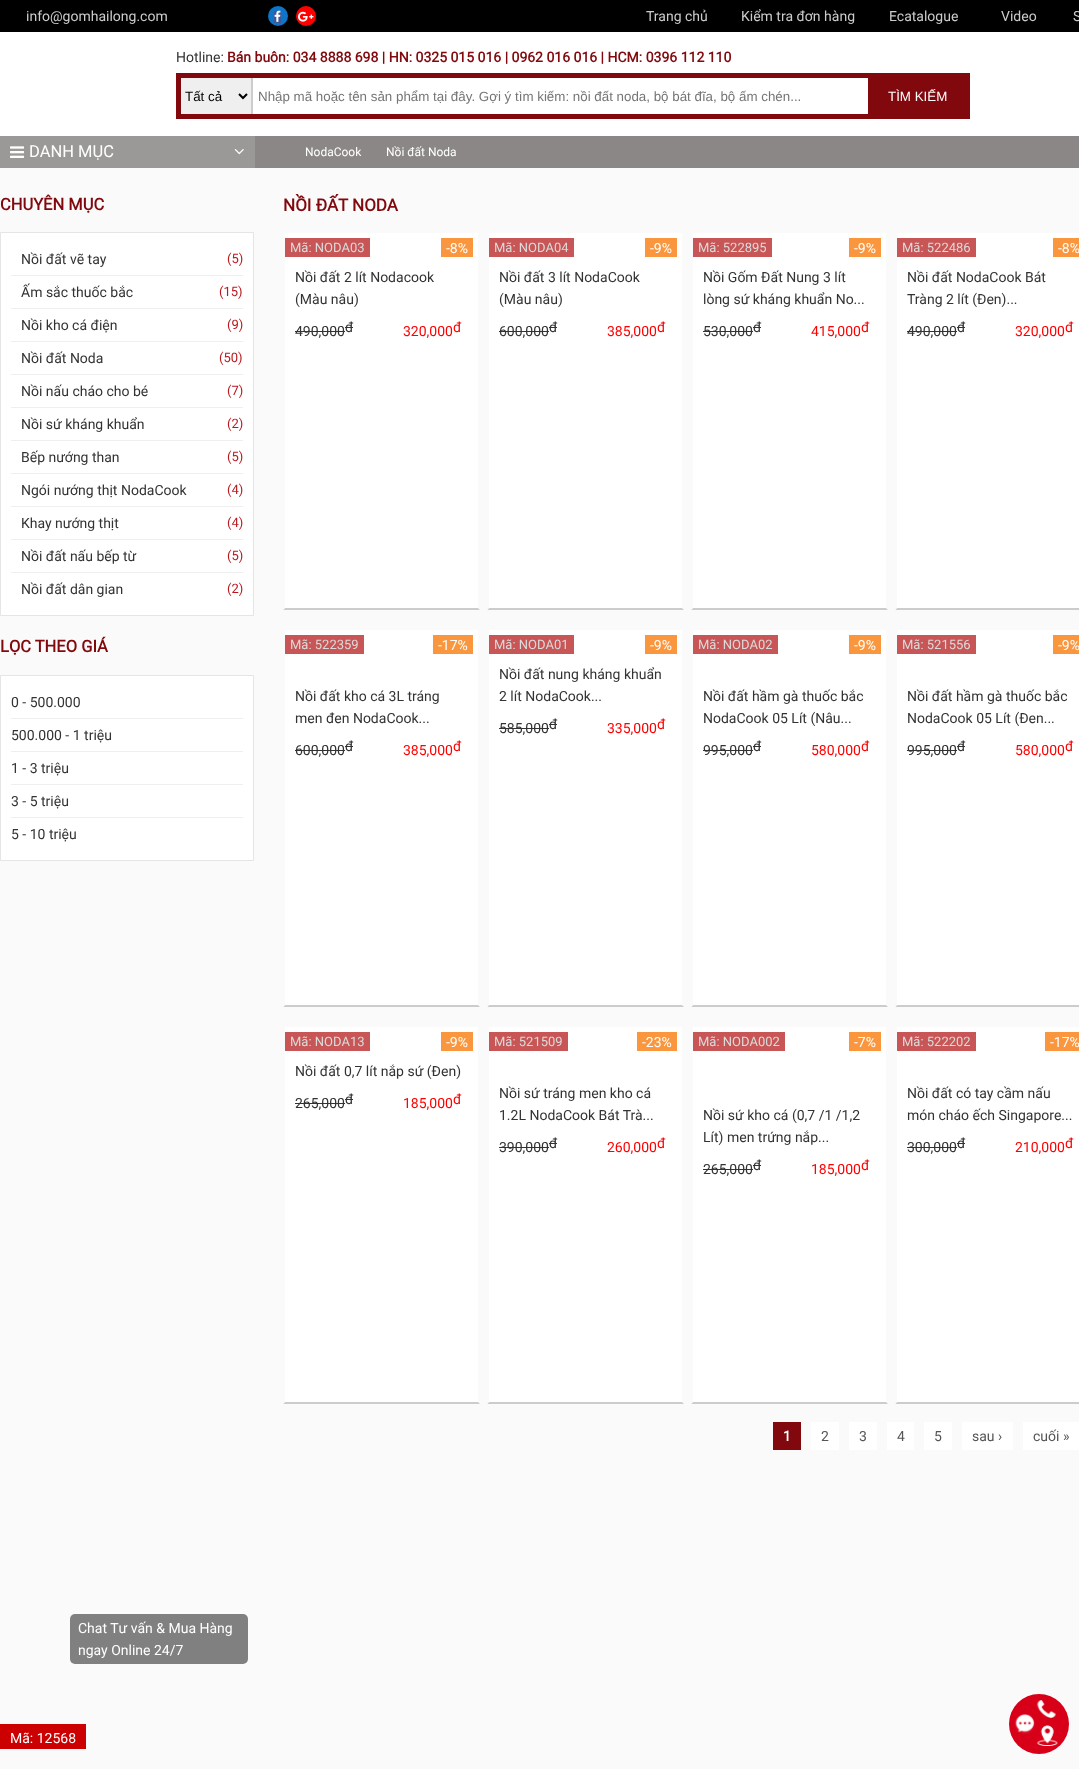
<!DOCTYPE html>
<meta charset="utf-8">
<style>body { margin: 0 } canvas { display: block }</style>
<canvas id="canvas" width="1079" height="1769"></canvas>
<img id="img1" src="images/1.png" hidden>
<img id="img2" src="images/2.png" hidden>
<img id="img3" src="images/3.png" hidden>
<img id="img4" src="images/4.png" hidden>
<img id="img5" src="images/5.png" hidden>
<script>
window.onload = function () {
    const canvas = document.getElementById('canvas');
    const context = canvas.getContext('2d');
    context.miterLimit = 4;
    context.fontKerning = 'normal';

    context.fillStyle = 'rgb(255, 255, 255)';
    context.fillRect(0, 0, 1079, 1769);
    context.fillStyle = 'rgb(0, 0, 0)';
    context.fillRect(0, 0, 1079, 32);
    context.fillStyle = 'rgb(13, 116, 199)';
    context.beginPath();
    context.arc(278, 16, 10, 0, 2 * Math.PI);
    context.fill();
    context.fillStyle = 'rgb(59, 89, 152)';
    context.fillRect(274, 11, 7, 12);
    context.drawImage(document.getElementById('img1'), 274, 10, 7, 12);
    context.fillStyle = 'rgb(255, 0, 0)';
    context.beginPath();
    context.arc(306, 16, 10, 0, 2 * Math.PI);
    context.fill();
    context.drawImage(document.getElementById('img2'), 298, 11, 16, 11);
    context.fillStyle = 'rgb(129, 8, 13)';
    context.fillRect(176, 73, 794, 46);
    context.fillStyle = 'rgb(239, 239, 239)';
    context.fillRect(181, 78, 70, 36);
    context.fillStyle = 'rgb(204, 204, 204)';
    context.fillRect(251, 78, 2, 36);
    context.beginPath();
    context.moveTo(239, 94);
    context.lineTo(243, 98);
    context.lineTo(247, 94);
    context.strokeStyle = 'rgb(0, 0, 0)';
    context.lineWidth = 2;
    context.stroke();
    context.fillStyle = 'rgb(255, 255, 255)';
    context.fillRect(253, 78, 615, 36);
    context.fillStyle = 'rgb(250, 250, 250)';
    context.fillRect(0, 168, 1079, 1601);
    context.fillStyle = 'rgb(140, 135, 135)';
    context.fillRect(255, 136, 824, 32);
    context.fillStyle = 'rgb(154, 153, 152)';
    context.fillRect(0, 136, 255, 32);
    context.drawImage(document.getElementById('img3'), 10, 146, 15, 12);
    context.drawImage(document.getElementById('img4'), 234, 149, 10, 6);
    context.fillStyle = 'rgb(255, 255, 255)';
    context.beginPath();
    context.rect(0.5, 232.5, 253, 383);
    context.fill();
    context.strokeStyle = 'rgb(229, 229, 229)';
    context.lineWidth = 1;
    context.stroke();
    context.fillStyle = 'rgb(239, 239, 239)';
    context.fillRect(11, 275, 232, 1);
    context.fillRect(11, 308, 232, 1);
    context.fillRect(11, 341, 232, 1);
    context.fillRect(11, 374, 232, 1);
    context.fillRect(11, 407, 232, 1);
    context.fillRect(11, 440, 232, 1);
    context.fillRect(11, 473, 232, 1);
    context.fillRect(11, 506, 232, 1);
    context.fillRect(11, 539, 232, 1);
    context.fillRect(11, 572, 232, 1);
    context.fillStyle = 'rgb(255, 255, 255)';
    context.beginPath();
    context.rect(0.5, 675.5, 253, 185);
    context.fill();
    context.stroke();
    context.fillStyle = 'rgb(239, 239, 239)';
    context.fillRect(11, 718, 232, 1);
    context.fillRect(11, 751, 232, 1);
    context.fillRect(11, 784, 232, 1);
    context.fillRect(11, 817, 232, 1);
    context.fillStyle = 'rgb(255, 255, 255)';
    context.fillRect(283, 233, 197, 377);
    context.fillStyle = 'rgb(250, 250, 250)';
    context.beginPath();
    context.moveTo(480, 231);
    context.lineTo(480, 610);
    context.lineTo(478, 608);
    context.lineTo(478, 233);
    context.closePath();
    context.fill();
    context.fillStyle = 'rgb(204, 204, 204)';
    context.beginPath();
    context.moveTo(480, 610);
    context.lineTo(283, 610);
    context.lineTo(285, 608);
    context.lineTo(478, 608);
    context.closePath();
    context.fill();
    context.fillStyle = 'rgb(250, 250, 250)';
    context.beginPath();
    context.moveTo(283, 610);
    context.lineTo(283, 231);
    context.lineTo(285, 233);
    context.lineTo(285, 608);
    context.closePath();
    context.fill();
    context.fillStyle = 'rgb(200, 86, 86)';
    context.fillRect(285, 238, 85, 19);
    context.fillStyle = 'rgb(249, 150, 62)';
    context.fillRect(441, 238, 32, 19);
    context.fillStyle = 'rgb(51, 51, 51)';
    context.fillRect(295, 331, 50, 1);
    context.fillRect(345, 327, 8, 1);
    context.fillStyle = 'rgb(255, 255, 255)';
    context.fillRect(487, 233, 197, 377);
    context.fillStyle = 'rgb(250, 250, 250)';
    context.beginPath();
    context.moveTo(684, 231);
    context.lineTo(684, 610);
    context.lineTo(682, 608);
    context.lineTo(682, 233);
    context.closePath();
    context.fill();
    context.fillStyle = 'rgb(204, 204, 204)';
    context.beginPath();
    context.moveTo(684, 610);
    context.lineTo(487, 610);
    context.lineTo(489, 608);
    context.lineTo(682, 608);
    context.closePath();
    context.fill();
    context.fillStyle = 'rgb(250, 250, 250)';
    context.beginPath();
    context.moveTo(487, 610);
    context.lineTo(487, 231);
    context.lineTo(489, 233);
    context.lineTo(489, 608);
    context.closePath();
    context.fill();
    context.fillStyle = 'rgb(200, 86, 86)';
    context.fillRect(489, 238, 85, 19);
    context.fillStyle = 'rgb(249, 150, 62)';
    context.fillRect(645, 238, 32, 19);
    context.fillStyle = 'rgb(51, 51, 51)';
    context.fillRect(499, 331, 50, 1);
    context.fillRect(549, 327, 8, 1);
    context.fillStyle = 'rgb(255, 255, 255)';
    context.fillRect(691, 233, 197, 377);
    context.fillStyle = 'rgb(250, 250, 250)';
    context.beginPath();
    context.moveTo(888, 231);
    context.lineTo(888, 610);
    context.lineTo(886, 608);
    context.lineTo(886, 233);
    context.closePath();
    context.fill();
    context.fillStyle = 'rgb(204, 204, 204)';
    context.beginPath();
    context.moveTo(888, 610);
    context.lineTo(691, 610);
    context.lineTo(693, 608);
    context.lineTo(886, 608);
    context.closePath();
    context.fill();
    context.fillStyle = 'rgb(250, 250, 250)';
    context.beginPath();
    context.moveTo(691, 610);
    context.lineTo(691, 231);
    context.lineTo(693, 233);
    context.lineTo(693, 608);
    context.closePath();
    context.fill();
    context.fillStyle = 'rgb(200, 86, 86)';
    context.fillRect(693, 238, 79, 19);
    context.fillStyle = 'rgb(249, 150, 62)';
    context.fillRect(849, 238, 32, 19);
    context.fillStyle = 'rgb(51, 51, 51)';
    context.fillRect(703, 331, 50, 1);
    context.fillRect(753, 327, 8, 1);
    context.fillStyle = 'rgb(255, 255, 255)';
    context.fillRect(895, 233, 184, 377);
    context.fillStyle = 'rgb(204, 204, 204)';
    context.beginPath();
    context.moveTo(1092, 610);
    context.lineTo(895, 610);
    context.lineTo(897, 608);
    context.lineTo(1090, 608);
    context.closePath();
    context.fill();
    context.fillStyle = 'rgb(250, 250, 250)';
    context.beginPath();
    context.moveTo(895, 610);
    context.lineTo(895, 231);
    context.lineTo(897, 233);
    context.lineTo(897, 608);
    context.closePath();
    context.fill();
    context.fillStyle = 'rgb(200, 86, 86)';
    context.fillRect(897, 238, 79, 19);
    context.fillStyle = 'rgb(249, 150, 62)';
    context.fillRect(1053, 238, 26, 19);
    context.fillStyle = 'rgb(51, 51, 51)';
    context.fillRect(907, 331, 50, 1);
    context.fillRect(957, 327, 8, 1);
    context.fillStyle = 'rgb(255, 255, 255)';
    context.fillRect(283, 630, 197, 377);
    context.fillStyle = 'rgb(250, 250, 250)';
    context.beginPath();
    context.moveTo(480, 628);
    context.lineTo(480, 1007);
    context.lineTo(478, 1005);
    context.lineTo(478, 630);
    context.closePath();
    context.fill();
    context.fillStyle = 'rgb(204, 204, 204)';
    context.beginPath();
    context.moveTo(480, 1007);
    context.lineTo(283, 1007);
    context.lineTo(285, 1005);
    context.lineTo(478, 1005);
    context.closePath();
    context.fill();
    context.fillStyle = 'rgb(250, 250, 250)';
    context.beginPath();
    context.moveTo(283, 1007);
    context.lineTo(283, 628);
    context.lineTo(285, 630);
    context.lineTo(285, 1005);
    context.closePath();
    context.fill();
    context.fillStyle = 'rgb(200, 86, 86)';
    context.fillRect(285, 635, 79, 19);
    context.fillStyle = 'rgb(249, 150, 62)';
    context.fillRect(433, 635, 40, 19);
    context.fillStyle = 'rgb(51, 51, 51)';
    context.fillRect(295, 750, 50, 1);
    context.fillRect(345, 746, 8, 1);
    context.fillStyle = 'rgb(255, 255, 255)';
    context.fillRect(487, 630, 197, 377);
    context.fillStyle = 'rgb(250, 250, 250)';
    context.beginPath();
    context.moveTo(684, 628);
    context.lineTo(684, 1007);
    context.lineTo(682, 1005);
    context.lineTo(682, 630);
    context.closePath();
    context.fill();
    context.fillStyle = 'rgb(204, 204, 204)';
    context.beginPath();
    context.moveTo(684, 1007);
    context.lineTo(487, 1007);
    context.lineTo(489, 1005);
    context.lineTo(682, 1005);
    context.closePath();
    context.fill();
    context.fillStyle = 'rgb(250, 250, 250)';
    context.beginPath();
    context.moveTo(487, 1007);
    context.lineTo(487, 628);
    context.lineTo(489, 630);
    context.lineTo(489, 1005);
    context.closePath();
    context.fill();
    context.fillStyle = 'rgb(200, 86, 86)';
    context.fillRect(489, 635, 85, 19);
    context.fillStyle = 'rgb(249, 150, 62)';
    context.fillRect(645, 635, 32, 19);
    context.fillStyle = 'rgb(51, 51, 51)';
    context.fillRect(499, 728, 50, 1);
    context.fillRect(549, 724, 8, 1);
    context.fillStyle = 'rgb(255, 255, 255)';
    context.fillRect(691, 630, 197, 377);
    context.fillStyle = 'rgb(250, 250, 250)';
    context.beginPath();
    context.moveTo(888, 628);
    context.lineTo(888, 1007);
    context.lineTo(886, 1005);
    context.lineTo(886, 630);
    context.closePath();
    context.fill();
    context.fillStyle = 'rgb(204, 204, 204)';
    context.beginPath();
    context.moveTo(888, 1007);
    context.lineTo(691, 1007);
    context.lineTo(693, 1005);
    context.lineTo(886, 1005);
    context.closePath();
    context.fill();
    context.fillStyle = 'rgb(250, 250, 250)';
    context.beginPath();
    context.moveTo(691, 1007);
    context.lineTo(691, 628);
    context.lineTo(693, 630);
    context.lineTo(693, 1005);
    context.closePath();
    context.fill();
    context.fillStyle = 'rgb(200, 86, 86)';
    context.fillRect(693, 635, 85, 19);
    context.fillStyle = 'rgb(249, 150, 62)';
    context.fillRect(849, 635, 32, 19);
    context.fillStyle = 'rgb(51, 51, 51)';
    context.fillRect(703, 750, 50, 1);
    context.fillRect(753, 746, 8, 1);
    context.fillStyle = 'rgb(255, 255, 255)';
    context.fillRect(895, 630, 184, 377);
    context.fillStyle = 'rgb(204, 204, 204)';
    context.beginPath();
    context.moveTo(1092, 1007);
    context.lineTo(895, 1007);
    context.lineTo(897, 1005);
    context.lineTo(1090, 1005);
    context.closePath();
    context.fill();
    context.fillStyle = 'rgb(250, 250, 250)';
    context.beginPath();
    context.moveTo(895, 1007);
    context.lineTo(895, 628);
    context.lineTo(897, 630);
    context.lineTo(897, 1005);
    context.closePath();
    context.fill();
    context.fillStyle = 'rgb(200, 86, 86)';
    context.fillRect(897, 635, 79, 19);
    context.fillStyle = 'rgb(249, 150, 62)';
    context.fillRect(1053, 635, 26, 19);
    context.fillStyle = 'rgb(51, 51, 51)';
    context.fillRect(907, 750, 50, 1);
    context.fillRect(957, 746, 8, 1);
    context.fillStyle = 'rgb(255, 255, 255)';
    context.fillRect(283, 1027, 197, 377);
    context.fillStyle = 'rgb(250, 250, 250)';
    context.beginPath();
    context.moveTo(480, 1025);
    context.lineTo(480, 1404);
    context.lineTo(478, 1402);
    context.lineTo(478, 1027);
    context.closePath();
    context.fill();
    context.fillStyle = 'rgb(204, 204, 204)';
    context.beginPath();
    context.moveTo(480, 1404);
    context.lineTo(283, 1404);
    context.lineTo(285, 1402);
    context.lineTo(478, 1402);
    context.closePath();
    context.fill();
    context.fillStyle = 'rgb(250, 250, 250)';
    context.beginPath();
    context.moveTo(283, 1404);
    context.lineTo(283, 1025);
    context.lineTo(285, 1027);
    context.lineTo(285, 1402);
    context.closePath();
    context.fill();
    context.fillStyle = 'rgb(200, 86, 86)';
    context.fillRect(285, 1032, 85, 19);
    context.fillStyle = 'rgb(249, 150, 62)';
    context.fillRect(441, 1032, 32, 19);
    context.fillStyle = 'rgb(51, 51, 51)';
    context.fillRect(295, 1103, 50, 1);
    context.fillRect(345, 1099, 8, 1);
    context.fillStyle = 'rgb(255, 255, 255)';
    context.fillRect(487, 1027, 197, 377);
    context.fillStyle = 'rgb(250, 250, 250)';
    context.beginPath();
    context.moveTo(684, 1025);
    context.lineTo(684, 1404);
    context.lineTo(682, 1402);
    context.lineTo(682, 1027);
    context.closePath();
    context.fill();
    context.fillStyle = 'rgb(204, 204, 204)';
    context.beginPath();
    context.moveTo(684, 1404);
    context.lineTo(487, 1404);
    context.lineTo(489, 1402);
    context.lineTo(682, 1402);
    context.closePath();
    context.fill();
    context.fillStyle = 'rgb(250, 250, 250)';
    context.beginPath();
    context.moveTo(487, 1404);
    context.lineTo(487, 1025);
    context.lineTo(489, 1027);
    context.lineTo(489, 1402);
    context.closePath();
    context.fill();
    context.fillStyle = 'rgb(200, 86, 86)';
    context.fillRect(489, 1032, 79, 19);
    context.fillStyle = 'rgb(249, 150, 62)';
    context.fillRect(637, 1032, 40, 19);
    context.fillStyle = 'rgb(51, 51, 51)';
    context.fillRect(499, 1147, 50, 1);
    context.fillRect(549, 1143, 8, 1);
    context.fillStyle = 'rgb(255, 255, 255)';
    context.fillRect(691, 1027, 197, 377);
    context.fillStyle = 'rgb(250, 250, 250)';
    context.beginPath();
    context.moveTo(888, 1025);
    context.lineTo(888, 1404);
    context.lineTo(886, 1402);
    context.lineTo(886, 1027);
    context.closePath();
    context.fill();
    context.fillStyle = 'rgb(204, 204, 204)';
    context.beginPath();
    context.moveTo(888, 1404);
    context.lineTo(691, 1404);
    context.lineTo(693, 1402);
    context.lineTo(886, 1402);
    context.closePath();
    context.fill();
    context.fillStyle = 'rgb(250, 250, 250)';
    context.beginPath();
    context.moveTo(691, 1404);
    context.lineTo(691, 1025);
    context.lineTo(693, 1027);
    context.lineTo(693, 1402);
    context.closePath();
    context.fill();
    context.fillStyle = 'rgb(200, 86, 86)';
    context.fillRect(693, 1032, 92, 19);
    context.fillStyle = 'rgb(249, 150, 62)';
    context.fillRect(849, 1032, 32, 19);
    context.fillStyle = 'rgb(51, 51, 51)';
    context.fillRect(703, 1169, 50, 1);
    context.fillRect(753, 1165, 8, 1);
    context.fillStyle = 'rgb(255, 255, 255)';
    context.fillRect(895, 1027, 184, 377);
    context.fillStyle = 'rgb(204, 204, 204)';
    context.beginPath();
    context.moveTo(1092, 1404);
    context.lineTo(895, 1404);
    context.lineTo(897, 1402);
    context.lineTo(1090, 1402);
    context.closePath();
    context.fill();
    context.fillStyle = 'rgb(250, 250, 250)';
    context.beginPath();
    context.moveTo(895, 1404);
    context.lineTo(895, 1025);
    context.lineTo(897, 1027);
    context.lineTo(897, 1402);
    context.closePath();
    context.fill();
    context.fillStyle = 'rgb(200, 86, 86)';
    context.fillRect(897, 1032, 79, 19);
    context.fillStyle = 'rgb(249, 150, 62)';
    context.fillRect(1045, 1032, 34, 19);
    context.fillStyle = 'rgb(51, 51, 51)';
    context.fillRect(907, 1147, 50, 1);
    context.fillRect(957, 1143, 8, 1);
    context.fillStyle = 'rgb(129, 8, 13)';
    context.fillRect(773, 1422, 28, 28);
    context.fillStyle = 'rgb(255, 255, 255)';
    context.fillRect(811, 1422, 28, 28);
    context.fillRect(849, 1422, 28, 28);
    context.fillRect(887, 1422, 27, 28);
    context.fillRect(924, 1422, 28, 28);
    context.fillRect(962, 1422, 51, 28);
    context.fillRect(1023, 1422, 56, 28);
    context.fillStyle = 'rgb(128, 128, 128)';
    context.beginPath();
    context.roundRect(70, 1614, 178, 50, 5);
    context.fill();
    context.fillStyle = 'rgb(204, 0, 0)';
    context.fillRect(0, 1724, 86, 25);
    context.fillStyle = 'rgb(215, 0, 24)';
    context.beginPath();
    context.arc(1039, 1724, 30, 0, 2 * Math.PI);
    context.fill();
    context.drawImage(document.getElementById('img5'), 1015, 1700, 43, 46);
    context.font = '14px Roboto';
    context.fillStyle = 'rgb(204, 204, 204)';
    context.fillText('info@gomhailong.com', 26, 21);
    context.fillText('Trang chủ', 646, 21);
    context.fillText('Kiểm tra đơn hàng', 741, 21);
    context.fillText('Ecatalogue', 889, 21);
    context.fillText('Video', 1001, 21);
    context.fillText('S', 1073, 21);
    context.fillStyle = 'rgb(51, 51, 51)';
    context.fillText('Hotline:', 176, 62);
    context.font = 'bold 14px Roboto';
    context.fillStyle = 'rgb(129, 8, 13)';
    context.fillText('Bán buôn: 034 8888 698 | HN: 0325 015 016 | 0962 016 016 | HCM: 0396 112 110', 227, 62);
    context.font = '13.35px Liberation Sans';
    context.fillStyle = 'rgb(0, 0, 0)';
    context.fillText('Tất cả', 185, 101);
    context.fillStyle = 'rgb(117, 117, 117)';
    context.fillText('Nhập mã hoặc tên sản phẩm tại đây. Gợi ý tìm kiếm: nồi đất noda, bộ bát đĩa, bộ ấm chén...', 258, 101);
    context.fillStyle = 'rgb(255, 255, 255)';
    context.fillText('TÌM KIẾM', 888, 101);
    context.font = '16.5px Roboto';
    context.fillText('DANH MỤC', 29, 157);
    context.font = '12px Roboto';
    context.fillText('NodaCook', 305, 156);
    context.fillText('Nồi đất Noda', 386, 156);
    context.font = 'bold 16.5px Roboto';
    context.fillStyle = 'rgb(129, 8, 13)';
    context.fillText('CHUYÊN MỤC', 0, 210);
    context.font = '14px Roboto';
    context.fillStyle = 'rgb(51, 51, 51)';
    context.fillText('Nồi đất vẽ tay', 21, 264);
    context.font = '13px Roboto';
    context.fillStyle = 'rgb(185, 25, 31)';
    context.fillText('(5)', 227, 263);
    context.font = '14px Roboto';
    context.fillStyle = 'rgb(51, 51, 51)';
    context.fillText('Ấm sắc thuốc bắc', 21, 297);
    context.font = '13px Roboto';
    context.fillStyle = 'rgb(185, 25, 31)';
    context.fillText('(15)', 219, 296);
    context.font = '14px Roboto';
    context.fillStyle = 'rgb(51, 51, 51)';
    context.fillText('Nồi kho cá điện', 21, 330);
    context.font = '13px Roboto';
    context.fillStyle = 'rgb(185, 25, 31)';
    context.fillText('(9)', 227, 329);
    context.font = '14px Roboto';
    context.fillStyle = 'rgb(51, 51, 51)';
    context.fillText('Nồi đất Noda', 21, 363);
    context.font = '13px Roboto';
    context.fillStyle = 'rgb(185, 25, 31)';
    context.fillText('(50)', 219, 362);
    context.font = '14px Roboto';
    context.fillStyle = 'rgb(51, 51, 51)';
    context.fillText('Nồi nấu cháo cho bé', 21, 396);
    context.font = '13px Roboto';
    context.fillStyle = 'rgb(185, 25, 31)';
    context.fillText('(7)', 227, 395);
    context.font = '14px Roboto';
    context.fillStyle = 'rgb(51, 51, 51)';
    context.fillText('Nồi sứ kháng khuẩn', 21, 429);
    context.font = '13px Roboto';
    context.fillStyle = 'rgb(185, 25, 31)';
    context.fillText('(2)', 227, 428);
    context.font = '14px Roboto';
    context.fillStyle = 'rgb(51, 51, 51)';
    context.fillText('Bếp nướng than', 21, 462);
    context.font = '13px Roboto';
    context.fillStyle = 'rgb(185, 25, 31)';
    context.fillText('(5)', 227, 461);
    context.font = '14px Roboto';
    context.fillStyle = 'rgb(51, 51, 51)';
    context.fillText('Ngói nướng thịt NodaCook', 21, 495);
    context.font = '13px Roboto';
    context.fillStyle = 'rgb(185, 25, 31)';
    context.fillText('(4)', 227, 494);
    context.font = '14px Roboto';
    context.fillStyle = 'rgb(51, 51, 51)';
    context.fillText('Khay nướng thịt', 21, 528);
    context.font = '13px Roboto';
    context.fillStyle = 'rgb(185, 25, 31)';
    context.fillText('(4)', 227, 527);
    context.font = '14px Roboto';
    context.fillStyle = 'rgb(51, 51, 51)';
    context.fillText('Nồi đất nấu bếp từ', 21, 561);
    context.font = '13px Roboto';
    context.fillStyle = 'rgb(185, 25, 31)';
    context.fillText('(5)', 227, 560);
    context.font = '14px Roboto';
    context.fillStyle = 'rgb(51, 51, 51)';
    context.fillText('Nồi đất dân gian', 21, 594);
    context.font = '13px Roboto';
    context.fillStyle = 'rgb(185, 25, 31)';
    context.fillText('(2)', 227, 593);
    context.font = 'bold 16.5px Roboto';
    context.fillStyle = 'rgb(129, 8, 13)';
    context.fillText('LỌC THEO GIÁ', 0, 652);
    context.font = '14px Roboto';
    context.fillStyle = 'rgb(51, 51, 51)';
    context.fillText('0 - 500.000', 11, 707);
    context.fillText('500.000 - 1 triệu', 11, 740);
    context.fillText('1 - 3 triệu', 11, 773);
    context.fillText('3 - 5 triệu', 11, 806);
    context.fillText('5 - 10 triệu', 11, 839);
    context.font = 'bold 17px Roboto';
    context.fillStyle = 'rgb(129, 8, 13)';
    context.fillText('NỒI ĐẤT NODA', 283, 211);
    context.font = '13px Roboto';
    context.fillStyle = 'rgb(219, 219, 219)';
    context.fillText('Mã: NODA03', 290, 252);
    context.font = '14px Roboto';
    context.fillStyle = 'rgb(255, 255, 255)';
    context.fillText('-8%', 446, 253);
    context.fillStyle = 'rgb(51, 51, 51)';
    context.fillText('490,000', 295, 336);
    context.fillText('đ', 345, 332);
    context.fillStyle = 'rgb(255, 0, 0)';
    context.fillText('320,000', 403, 336);
    context.fillText('đ', 453, 332);
    context.fillStyle = 'rgb(51, 51, 51)';
    context.fillText('Nồi đất 2 lít Nodacook', 295, 282);
    context.fillText('(Màu nâu)', 295, 304);
    context.font = '13px Roboto';
    context.fillStyle = 'rgb(219, 219, 219)';
    context.fillText('Mã: NODA04', 494, 252);
    context.font = '14px Roboto';
    context.fillStyle = 'rgb(255, 255, 255)';
    context.fillText('-9%', 650, 253);
    context.fillStyle = 'rgb(51, 51, 51)';
    context.fillText('600,000', 499, 336);
    context.fillText('đ', 549, 332);
    context.fillStyle = 'rgb(255, 0, 0)';
    context.fillText('385,000', 607, 336);
    context.fillText('đ', 657, 332);
    context.fillStyle = 'rgb(51, 51, 51)';
    context.fillText('Nồi đất 3 lít NodaCook', 499, 282);
    context.fillText('(Màu nâu)', 499, 304);
    context.font = '13px Roboto';
    context.fillStyle = 'rgb(219, 219, 219)';
    context.fillText('Mã: 522895', 698, 252);
    context.font = '14px Roboto';
    context.fillStyle = 'rgb(255, 255, 255)';
    context.fillText('-9%', 854, 253);
    context.fillStyle = 'rgb(51, 51, 51)';
    context.fillText('530,000', 703, 336);
    context.fillText('đ', 753, 332);
    context.fillStyle = 'rgb(255, 0, 0)';
    context.fillText('415,000', 811, 336);
    context.fillText('đ', 861, 332);
    context.fillStyle = 'rgb(51, 51, 51)';
    context.fillText('Nồi Gốm Đất Nung 3 lít', 703, 282);
    context.fillText('lòng sứ kháng khuẩn No...', 703, 304);
    context.font = '13px Roboto';
    context.fillStyle = 'rgb(219, 219, 219)';
    context.fillText('Mã: 522486', 902, 252);
    context.font = '14px Roboto';
    context.fillStyle = 'rgb(255, 255, 255)';
    context.fillText('-8%', 1058, 253);
    context.fillStyle = 'rgb(51, 51, 51)';
    context.fillText('490,000', 907, 336);
    context.fillText('đ', 957, 332);
    context.fillStyle = 'rgb(255, 0, 0)';
    context.fillText('320,000', 1015, 336);
    context.fillText('đ', 1065, 332);
    context.fillStyle = 'rgb(51, 51, 51)';
    context.fillText('Nồi đất NodaCook Bát', 907, 282);
    context.fillText('Tràng 2 lít (Đen)...', 907, 304);
    context.font = '13px Roboto';
    context.fillStyle = 'rgb(219, 219, 219)';
    context.fillText('Mã: 522359', 290, 649);
    context.font = '14px Roboto';
    context.fillStyle = 'rgb(255, 255, 255)';
    context.fillText('-17%', 438, 650);
    context.fillStyle = 'rgb(51, 51, 51)';
    context.fillText('600,000', 295, 755);
    context.fillText('đ', 345, 751);
    context.fillStyle = 'rgb(255, 0, 0)';
    context.fillText('385,000', 403, 755);
    context.fillText('đ', 453, 751);
    context.fillStyle = 'rgb(51, 51, 51)';
    context.fillText('Nồi đất kho cá 3L tráng', 295, 701);
    context.fillText('men đen NodaCook...', 295, 723);
    context.font = '13px Roboto';
    context.fillStyle = 'rgb(219, 219, 219)';
    context.fillText('Mã: NODA01', 494, 649);
    context.font = '14px Roboto';
    context.fillStyle = 'rgb(255, 255, 255)';
    context.fillText('-9%', 650, 650);
    context.fillStyle = 'rgb(51, 51, 51)';
    context.fillText('585,000', 499, 733);
    context.fillText('đ', 549, 729);
    context.fillStyle = 'rgb(255, 0, 0)';
    context.fillText('335,000', 607, 733);
    context.fillText('đ', 657, 729);
    context.fillStyle = 'rgb(51, 51, 51)';
    context.fillText('Nồi đất nung kháng khuẩn', 499, 679);
    context.fillText('2 lít NodaCook...', 499, 701);
    context.font = '13px Roboto';
    context.fillStyle = 'rgb(219, 219, 219)';
    context.fillText('Mã: NODA02', 698, 649);
    context.font = '14px Roboto';
    context.fillStyle = 'rgb(255, 255, 255)';
    context.fillText('-9%', 854, 650);
    context.fillStyle = 'rgb(51, 51, 51)';
    context.fillText('995,000', 703, 755);
    context.fillText('đ', 753, 751);
    context.fillStyle = 'rgb(255, 0, 0)';
    context.fillText('580,000', 811, 755);
    context.fillText('đ', 861, 751);
    context.fillStyle = 'rgb(51, 51, 51)';
    context.fillText('Nồi đất hầm gà thuốc bắc', 703, 701);
    context.fillText('NodaCook 05 Lít (Nâu...', 703, 723);
    context.font = '13px Roboto';
    context.fillStyle = 'rgb(219, 219, 219)';
    context.fillText('Mã: 521556', 902, 649);
    context.font = '14px Roboto';
    context.fillStyle = 'rgb(255, 255, 255)';
    context.fillText('-9%', 1058, 650);
    context.fillStyle = 'rgb(51, 51, 51)';
    context.fillText('995,000', 907, 755);
    context.fillText('đ', 957, 751);
    context.fillStyle = 'rgb(255, 0, 0)';
    context.fillText('580,000', 1015, 755);
    context.fillText('đ', 1065, 751);
    context.fillStyle = 'rgb(51, 51, 51)';
    context.fillText('Nồi đất hầm gà thuốc bắc', 907, 701);
    context.fillText('NodaCook 05 Lít (Đen...', 907, 723);
    context.font = '13px Roboto';
    context.fillStyle = 'rgb(219, 219, 219)';
    context.fillText('Mã: NODA13', 290, 1046);
    context.font = '14px Roboto';
    context.fillStyle = 'rgb(255, 255, 255)';
    context.fillText('-9%', 446, 1047);
    context.fillStyle = 'rgb(51, 51, 51)';
    context.fillText('265,000', 295, 1108);
    context.fillText('đ', 345, 1104);
    context.fillStyle = 'rgb(255, 0, 0)';
    context.fillText('185,000', 403, 1108);
    context.fillText('đ', 453, 1104);
    context.fillStyle = 'rgb(51, 51, 51)';
    context.fillText('Nồi đất 0,7 lít nắp sứ (Đen)', 295, 1076);
    context.font = '13px Roboto';
    context.fillStyle = 'rgb(219, 219, 219)';
    context.fillText('Mã: 521509', 494, 1046);
    context.font = '14px Roboto';
    context.fillStyle = 'rgb(255, 255, 255)';
    context.fillText('-23%', 642, 1047);
    context.fillStyle = 'rgb(51, 51, 51)';
    context.fillText('390,000', 499, 1152);
    context.fillText('đ', 549, 1148);
    context.fillStyle = 'rgb(255, 0, 0)';
    context.fillText('260,000', 607, 1152);
    context.fillText('đ', 657, 1148);
    context.fillStyle = 'rgb(51, 51, 51)';
    context.fillText('Nồi sứ tráng men kho cá', 499, 1098);
    context.fillText('1.2L NodaCook Bát Trà...', 499, 1120);
    context.font = '13px Roboto';
    context.fillStyle = 'rgb(219, 219, 219)';
    context.fillText('Mã: NODA002', 698, 1046);
    context.font = '14px Roboto';
    context.fillStyle = 'rgb(255, 255, 255)';
    context.fillText('-7%', 854, 1047);
    context.fillStyle = 'rgb(51, 51, 51)';
    context.fillText('265,000', 703, 1174);
    context.fillText('đ', 753, 1170);
    context.fillStyle = 'rgb(255, 0, 0)';
    context.fillText('185,000', 811, 1174);
    context.fillText('đ', 861, 1170);
    context.fillStyle = 'rgb(51, 51, 51)';
    context.fillText('Nồi sứ kho cá (0,7 /1 /1,2', 703, 1120);
    context.fillText('Lít) men trứng nắp...', 703, 1142);
    context.font = '13px Roboto';
    context.fillStyle = 'rgb(219, 219, 219)';
    context.fillText('Mã: 522202', 902, 1046);
    context.font = '14px Roboto';
    context.fillStyle = 'rgb(255, 255, 255)';
    context.fillText('-17%', 1050, 1047);
    context.fillStyle = 'rgb(51, 51, 51)';
    context.fillText('300,000', 907, 1152);
    context.fillText('đ', 957, 1148);
    context.fillStyle = 'rgb(255, 0, 0)';
    context.fillText('210,000', 1015, 1152);
    context.fillText('đ', 1065, 1148);
    context.fillStyle = 'rgb(51, 51, 51)';
    context.fillText('Nồi đất có tay cầm nấu', 907, 1098);
    context.fillText('món cháo ếch Singapore...', 907, 1120);
    context.font = 'bold 14px Roboto';
    context.fillStyle = 'rgb(255, 255, 255)';
    context.fillText('1', 783, 1441);
    context.font = '14px Roboto';
    context.fillStyle = 'rgb(85, 85, 85)';
    context.fillText('2', 821, 1441);
    context.fillText('3', 859, 1441);
    context.fillText('4', 897, 1441);
    context.fillText('5', 934, 1441);
    context.fillText('sau ›', 972, 1441);
    context.fillText('cuối »', 1033, 1441);
    context.fillStyle = 'rgb(255, 255, 255)';
    context.fillText('Chat Tư vấn & Mua Hàng', 78, 1633);
    context.fillText('ngay Online 24/7', 78, 1655);
    context.fillText('Mã: 12568', 10, 1743);
};
</script>
